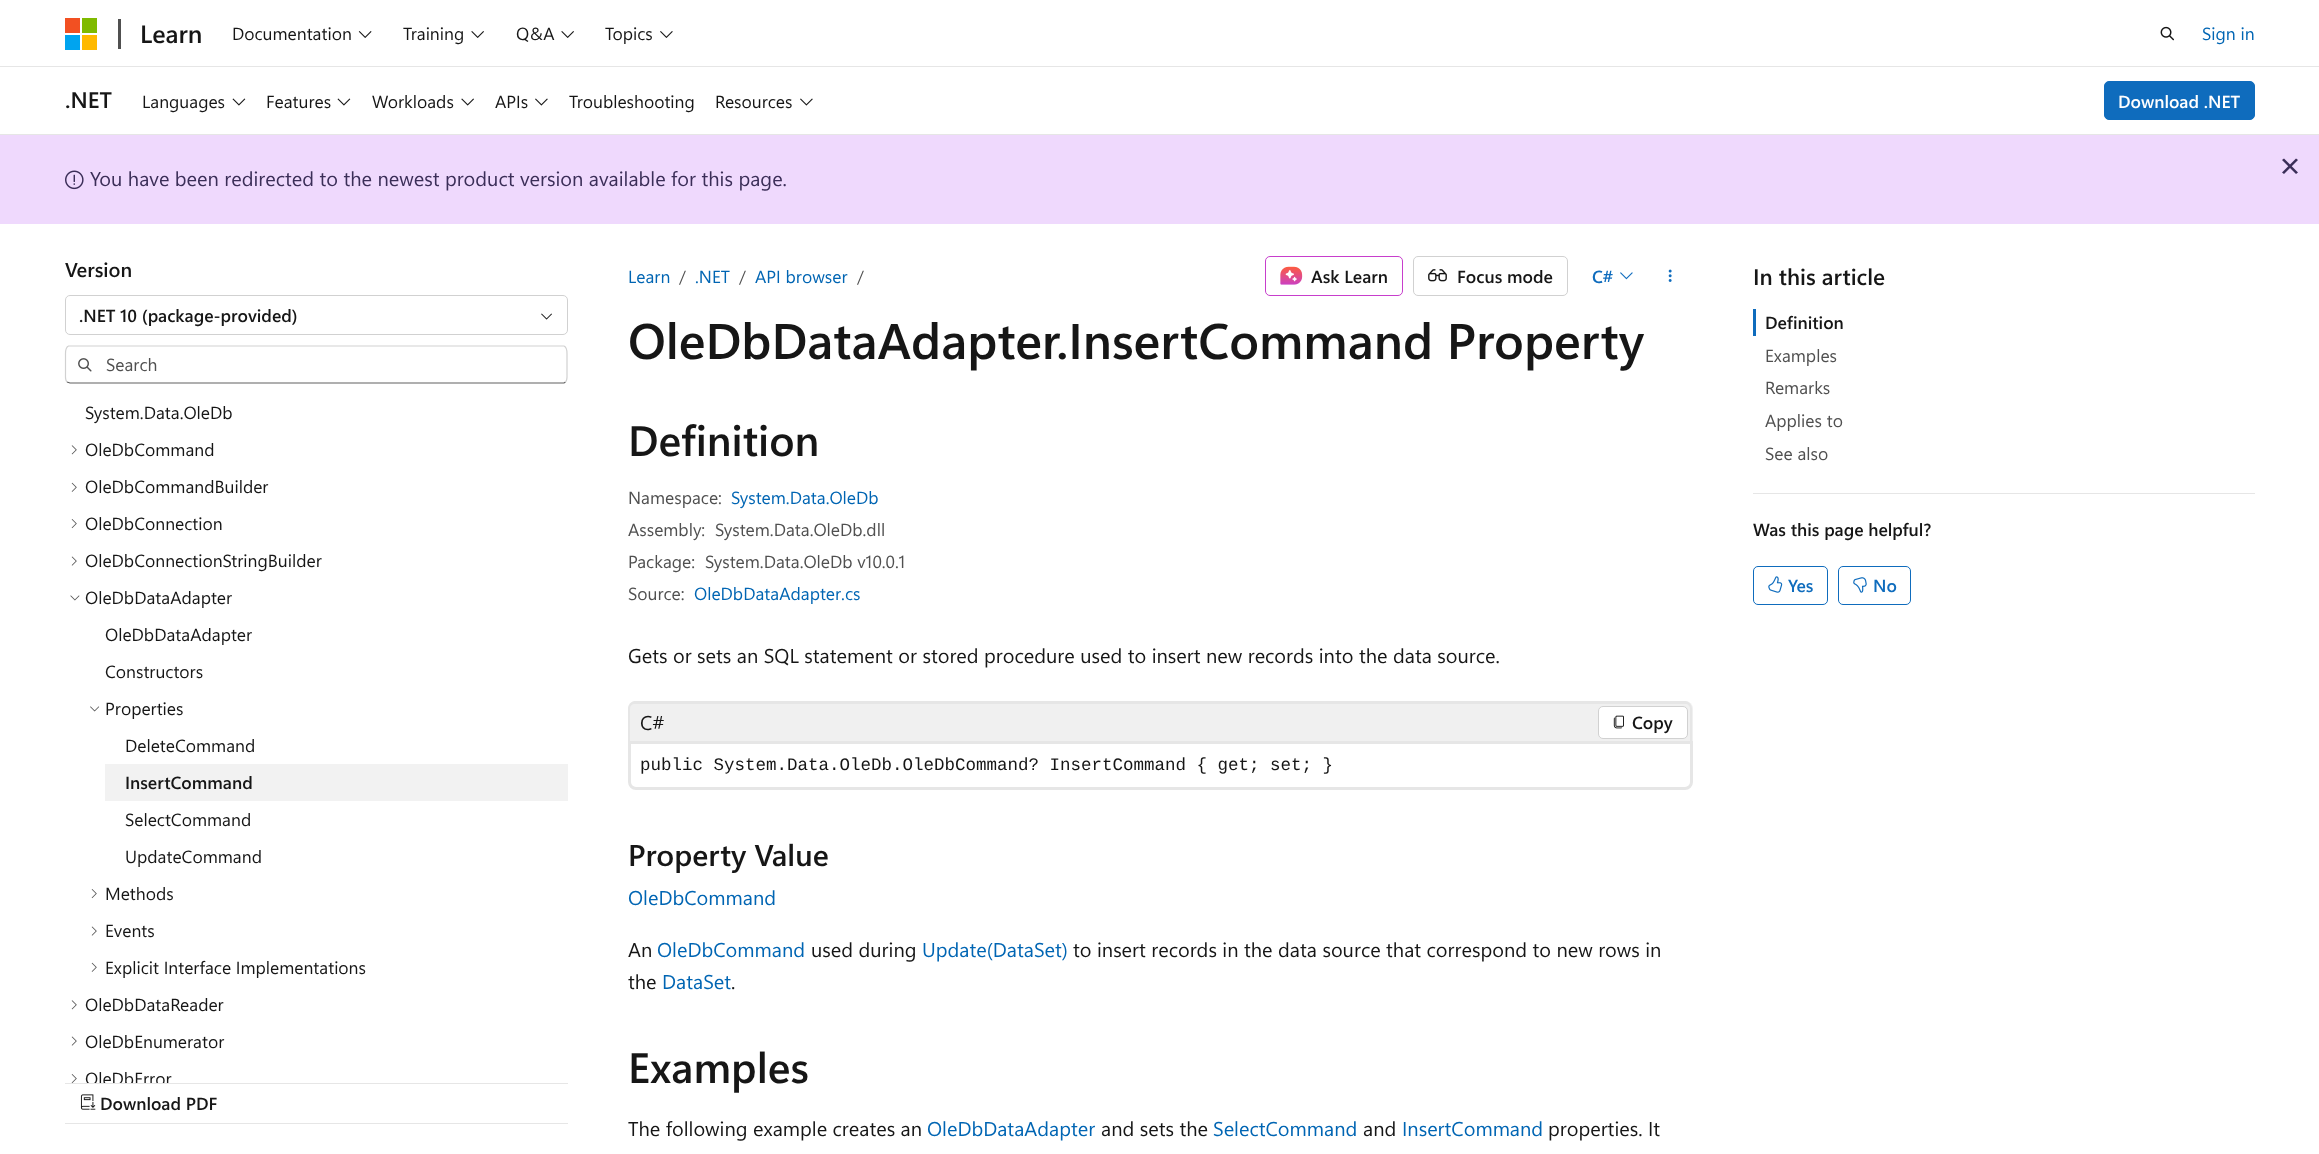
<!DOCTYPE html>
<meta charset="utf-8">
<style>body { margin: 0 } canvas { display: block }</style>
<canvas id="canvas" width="2319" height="1154"></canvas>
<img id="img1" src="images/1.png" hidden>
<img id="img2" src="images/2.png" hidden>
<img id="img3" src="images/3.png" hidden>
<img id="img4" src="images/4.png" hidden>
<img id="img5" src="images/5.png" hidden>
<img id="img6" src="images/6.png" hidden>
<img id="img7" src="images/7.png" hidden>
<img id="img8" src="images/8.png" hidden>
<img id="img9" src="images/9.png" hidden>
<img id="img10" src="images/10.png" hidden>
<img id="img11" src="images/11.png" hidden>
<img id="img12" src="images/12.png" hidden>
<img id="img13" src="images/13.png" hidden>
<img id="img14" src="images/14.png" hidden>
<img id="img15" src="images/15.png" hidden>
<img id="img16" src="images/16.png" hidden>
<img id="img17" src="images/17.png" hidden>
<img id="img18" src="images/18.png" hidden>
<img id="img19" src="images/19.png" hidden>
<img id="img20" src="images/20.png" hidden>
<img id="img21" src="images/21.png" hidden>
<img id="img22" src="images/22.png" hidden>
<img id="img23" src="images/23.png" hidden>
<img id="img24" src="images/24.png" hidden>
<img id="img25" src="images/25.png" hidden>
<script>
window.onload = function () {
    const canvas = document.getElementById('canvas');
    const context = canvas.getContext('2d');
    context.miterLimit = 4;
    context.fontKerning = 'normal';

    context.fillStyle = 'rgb(255, 255, 255)';
    context.fillRect(0, 0, 2319, 1154);
    context.fillStyle = 'rgb(230, 230, 230)';
    context.fillRect(0, 66, 2319, 1);
    context.fillStyle = 'rgb(242, 80, 34)';
    context.fillRect(65, 18, 15, 15);
    context.fillStyle = 'rgb(127, 186, 0)';
    context.fillRect(82, 18, 15, 15);
    context.fillStyle = 'rgb(0, 164, 239)';
    context.fillRect(65, 35, 15, 15);
    context.fillStyle = 'rgb(255, 185, 0)';
    context.fillRect(82, 35, 15, 15);
    context.fillStyle = 'rgb(80, 80, 80)';
    context.fillRect(118, 19, 3, 30);
    context.drawImage(document.getElementById('img1'), 358, 31, 14, 7);
    context.drawImage(document.getElementById('img2'), 471, 31, 13, 7);
    context.drawImage(document.getElementById('img2'), 561, 31, 13, 7);
    context.drawImage(document.getElementById('img3'), 660, 31, 13, 7);
    context.drawImage(document.getElementById('img4'), 2160, 26, 14, 15);
    context.fillStyle = 'rgb(230, 230, 230)';
    context.fillRect(0, 134, 2319, 1);
    context.drawImage(document.getElementById('img5'), 232, 98, 14, 8);
    context.drawImage(document.getElementById('img5'), 337, 98, 14, 8);
    context.drawImage(document.getElementById('img6'), 461, 98, 13, 8);
    context.drawImage(document.getElementById('img7'), 535, 98, 13, 8);
    context.drawImage(document.getElementById('img7'), 800, 98, 13, 8);
    context.fillStyle = 'rgb(15, 108, 189)';
    context.beginPath();
    context.roundRect(2104.5, 81.5, 150, 38, 4.5);
    context.fill();
    context.strokeStyle = 'rgb(15, 108, 189)';
    context.stroke();
    context.fillStyle = 'rgb(239, 217, 253)';
    context.fillRect(0, 135, 2319, 89);
    context.fillStyle = 'rgb(59, 46, 88)';
    context.beginPath();
    context.moveTo(2284, 158.5);
    context.lineTo(2298, 172.5);
    context.lineTo(2296, 174);
    context.lineTo(2282, 160);
    context.closePath();
    context.fill();
    context.beginPath();
    context.moveTo(2296, 158.5);
    context.lineTo(2298, 160);
    context.lineTo(2284, 174);
    context.lineTo(2282, 172.5);
    context.closePath();
    context.fill();
    context.drawImage(document.getElementById('img8'), 65, 170, 19, 20);
    context.beginPath();
    context.roundRect(65.5, 295.5, 502, 39, 4.5);
    context.strokeStyle = 'rgb(209, 209, 209)';
    context.stroke();
    context.drawImage(document.getElementById('img9'), 541, 313, 11, 7);
    context.beginPath();
    context.moveTo(565.5, 382);
    context.lineTo(564, 383);
    context.lineTo(398.5, 383);
    context.lineTo(70, 383);
    context.lineTo(67, 382);
    context.strokeStyle = 'rgb(97, 97, 97)';
    context.lineWidth = 1.2;
    context.stroke();
    context.beginPath();
    context.moveTo(67, 382);
    context.bezierCurveTo(65, 380, 65.5, 376.5, 65.5, 374);
    context.lineTo(65.5, 355);
    context.bezierCurveTo(65.5, 352, 65, 347.5, 68.5, 346);
    context.lineTo(564, 346);
    context.bezierCurveTo(567.5, 347.5, 567, 352, 567, 355);
    context.lineTo(567, 374);
    context.bezierCurveTo(567, 376.5, 567.5, 380, 565.5, 382);
    context.strokeStyle = 'rgb(209, 209, 209)';
    context.stroke();
    context.drawImage(document.getElementById('img10'), 78, 358, 14, 14);
    context.drawImage(document.getElementById('img11'), 71, 445, 6, 10);
    context.drawImage(document.getElementById('img12'), 71, 482, 6, 10);
    context.drawImage(document.getElementById('img13'), 71, 519, 6, 10);
    context.drawImage(document.getElementById('img14'), 71, 556, 6, 10);
    context.drawImage(document.getElementById('img15'), 70, 595, 10, 6);
    context.drawImage(document.getElementById('img16'), 90, 706, 10, 6);
    context.fillStyle = 'rgb(242, 242, 242)';
    context.fillRect(105, 764, 463, 37);
    context.drawImage(document.getElementById('img13'), 91, 889, 6, 10);
    context.drawImage(document.getElementById('img14'), 91, 926, 6, 10);
    context.drawImage(document.getElementById('img12'), 91, 962, 6, 10);
    context.drawImage(document.getElementById('img11'), 71, 1000, 6, 10);
    context.drawImage(document.getElementById('img14'), 71, 1036, 6, 10);
    context.drawImage(document.getElementById('img17'), 71, 1074, 6, 9);
    context.fillStyle = 'rgb(230, 230, 230)';
    context.fillRect(65, 1083, 503, 1);
    context.fillRect(65, 1123, 503, 1);
    context.drawImage(document.getElementById('img18'), 80, 1094, 16, 16);
    context.beginPath();
    context.roundRect(1265.5, 256.5, 137, 39, 4.5);
    context.strokeStyle = 'rgb(199, 62, 204)';
    context.lineWidth = 1;
    context.stroke();
    context.drawImage(document.getElementById('img19'), 1280, 266, 23, 19);
    context.beginPath();
    context.roundRect(1413.5, 256.5, 154, 39, 4.5);
    context.strokeStyle = 'rgb(209, 209, 209)';
    context.stroke();
    context.drawImage(document.getElementById('img20'), 1428, 269, 19, 13);
    context.drawImage(document.getElementById('img21'), 1620, 272, 13, 8);
    context.drawImage(document.getElementById('img22'), 1668, 269, 4, 13);
    context.fillStyle = 'rgb(240, 240, 240)';
    context.beginPath();
    context.roundRect(628, 701, 1065, 40, [8, 8, 0, 0]);
    context.fill();
    context.fillStyle = 'rgb(230, 230, 230)';
    context.beginPath();
    context.moveTo(635, 701);
    context.lineTo(1685, 701);
    context.bezierCurveTo(1689, 701, 1692, 705, 1692, 709);
    context.lineTo(1692, 741);
    context.lineTo(628, 741);
    context.lineTo(628, 709);
    context.bezierCurveTo(628, 705, 631, 701, 635, 701);
    context.closePath();
    context.moveTo(635, 704);
    context.lineTo(1685, 704);
    context.bezierCurveTo(1688, 704, 1690, 706, 1690, 709);
    context.lineTo(1690, 741);
    context.lineTo(630, 741);
    context.lineTo(630, 709);
    context.bezierCurveTo(630, 706, 632, 704, 635, 704);
    context.closePath();
    context.fill('evenodd');
    context.fillStyle = 'rgb(255, 255, 255)';
    context.beginPath();
    context.roundRect(1598.5, 706.5, 89, 32, 4.5);
    context.fill();
    context.stroke();
    context.drawImage(document.getElementById('img23'), 1613, 715, 11, 14);
    context.beginPath();
    context.roundRect(629.5, 742.5, 1062, 46, [0, 0, 6.5, 6.5]);
    context.strokeStyle = 'rgb(230, 230, 230)';
    context.lineWidth = 3;
    context.stroke();
    context.fillStyle = 'rgb(230, 230, 230)';
    context.fillRect(1753, 493, 502, 1);
    context.fillStyle = 'rgb(15, 108, 189)';
    context.fillRect(1753, 309, 3, 27);
    context.beginPath();
    context.roundRect(1753.5, 566.5, 74, 38, 4.5);
    context.strokeStyle = 'rgb(15, 108, 189)';
    context.lineWidth = 1;
    context.stroke();
    context.drawImage(document.getElementById('img24'), 1768, 576, 15, 17);
    context.beginPath();
    context.roundRect(1838.5, 566.5, 72, 38, 4.5);
    context.stroke();
    context.drawImage(document.getElementById('img25'), 1853, 577, 14, 16);
    context.font = '600 25px Segoe UI';
    context.fillStyle = 'rgb(22, 22, 22)';
    context.fillText('Learn', 140, 43);
    context.font = '17.5px Segoe UI';
    context.fillText('Documentation', 232, 40);
    context.fillText('Training', 403, 40);
    context.fillText('Q&A', 516, 40);
    context.fillText('Topics', 605, 40);
    context.fillStyle = 'rgb(0, 101, 179)';
    context.fillText('Sign in', 2202, 40);
    context.font = '600 22.5px Segoe UI';
    context.fillStyle = 'rgb(22, 22, 22)';
    context.fillText('.NET', 65, 108);
    context.font = '17.5px Segoe UI';
    context.fillText('Languages', 142, 108);
    context.fillText('Features', 266, 108);
    context.fillText('Workloads', 372, 108);
    context.fillText('APIs', 495, 108);
    context.fillText('Troubleshooting', 569, 108);
    context.fillText('Resources', 715, 108);
    context.font = '600 17.5px Segoe UI';
    context.fillStyle = 'rgb(255, 255, 255)';
    context.fillText('Download .NET', 2118, 108);
    context.font = '20px Segoe UI';
    context.fillStyle = 'rgb(59, 46, 88)';
    context.fillText('You have been redirected to the newest product version available for this page.', 90, 186);
    context.font = '600 20px Segoe UI';
    context.fillStyle = 'rgb(22, 22, 22)';
    context.fillText('Version', 65, 277);
    context.font = '600 17.5px Segoe UI';
    context.fillText('.NET 10 (package-provided)', 79, 322);
    context.font = '17.5px Segoe UI';
    context.fillStyle = 'rgb(80, 80, 80)';
    context.fillText('Search', 106, 371);
    context.fillStyle = 'rgb(22, 22, 22)';
    context.fillText('System.Data.OleDb', 85, 419);
    context.fillText('OleDbCommand', 85, 456);
    context.fillText('OleDbCommandBuilder', 85, 493);
    context.fillText('OleDbConnection', 85, 530);
    context.fillText('OleDbConnectionStringBuilder', 85, 567);
    context.fillText('OleDbDataAdapter', 85, 604);
    context.fillText('OleDbDataAdapter', 105, 641);
    context.fillText('Constructors', 105, 678);
    context.fillText('Properties', 105, 715);
    context.fillText('DeleteCommand', 125, 752);
    context.font = '600 17.5px Segoe UI';
    context.fillText('InsertCommand', 125, 789);
    context.font = '17.5px Segoe UI';
    context.fillText('SelectCommand', 125, 826);
    context.fillText('UpdateCommand', 125, 863);
    context.fillText('Methods', 105, 900);
    context.fillText('Events', 105, 937);
    context.fillText('Explicit Interface Implementations', 105, 974);
    context.fillText('OleDbDataReader', 85, 1011);
    context.fillText('OleDbEnumerator', 85, 1048);
    context.save();
    context.beginPath();
    context.rect(65, 394, 503, 689);
    context.clip();
    context.fillText('OleDbError', 85, 1085);
    context.restore();
    context.font = '600 17.5px Segoe UI';
    context.fillText('Download PDF', 100, 1110);
    context.font = '17.5px Segoe UI';
    context.fillStyle = 'rgb(0, 101, 179)';
    context.fillText('Learn', 628, 283);
    context.fillStyle = 'rgb(80, 80, 80)';
    context.fillText('/', 679, 283);
    context.fillStyle = 'rgb(0, 101, 179)';
    context.fillText('.NET', 695, 283);
    context.fillStyle = 'rgb(80, 80, 80)';
    context.fillText('/', 739, 283);
    context.fillStyle = 'rgb(0, 101, 179)';
    context.fillText('API browser', 755, 283);
    context.fillStyle = 'rgb(80, 80, 80)';
    context.fillText('/', 857, 283);
    context.font = '600 17.5px Segoe UI';
    context.fillStyle = 'rgb(22, 22, 22)';
    context.fillText('Ask Learn', 1311, 283);
    context.fillText('Focus mode', 1457, 283);
    context.fillStyle = 'rgb(15, 108, 189)';
    context.fillText('C#', 1592, 283);
    context.font = '600 50px Segoe UI';
    context.fillStyle = 'rgb(22, 22, 22)';
    context.fillText('OleDbDataAdapter.InsertCommand Property', 628, 359);
    context.font = '600 42.5px Segoe UI';
    context.fillText('Definition', 628, 456);
    context.font = '17.5px Segoe UI';
    context.fillStyle = 'rgb(80, 80, 80)';
    context.fillText('Namespace:', 628, 504);
    context.fillStyle = 'rgb(0, 101, 179)';
    context.fillText('System.Data.OleDb', 731, 504);
    context.fillStyle = 'rgb(80, 80, 80)';
    context.fillText('Assembly:', 628, 536);
    context.fillText('System.Data.OleDb.dll', 715, 536);
    context.fillText('Package:', 628, 568);
    context.fillText('System.Data.OleDb v10.0.1', 705, 568);
    context.fillText('Source:', 628, 600);
    context.fillStyle = 'rgb(0, 101, 179)';
    context.fillText('OleDbDataAdapter.cs', 694, 600);
    context.font = '20px Segoe UI';
    context.fillStyle = 'rgb(22, 22, 22)';
    context.fillText('Gets or sets an SQL statement or stored procedure used to insert new records into the data source.', 628, 663);
    context.fillText('C#', 640, 730);
    context.font = '600 17.5px Segoe UI';
    context.fillText('Copy', 1632, 729);
    context.font = '17.5px Liberation Mono';
    context.fillText('public System.Data.OleDb.OleDbCommand? InsertCommand { get; set; }', 640, 770);
    context.font = '600 30px Segoe UI';
    context.fillText('Property Value', 628, 866);
    context.font = '20px Segoe UI';
    context.fillStyle = 'rgb(0, 101, 179)';
    context.fillText('OleDbCommand', 628, 905);
    context.fillStyle = 'rgb(22, 22, 22)';
    context.fillText('An', 628, 957);
    context.fillStyle = 'rgb(0, 101, 179)';
    context.fillText('OleDbCommand', 657, 957);
    context.fillStyle = 'rgb(22, 22, 22)';
    context.fillText('used during', 811, 957);
    context.fillStyle = 'rgb(0, 101, 179)';
    context.fillText('Update(DataSet)', 922, 957);
    context.fillStyle = 'rgb(22, 22, 22)';
    context.fillText('to insert records in the data source that correspond to new rows in', 1073, 957);
    context.fillText('the', 628, 989);
    context.fillStyle = 'rgb(0, 101, 179)';
    context.fillText('DataSet', 662, 989);
    context.fillStyle = 'rgb(22, 22, 22)';
    context.fillText('.', 731, 989);
    context.font = '600 42.5px Segoe UI';
    context.fillText('Examples', 628, 1083);
    context.font = '20px Segoe UI';
    context.fillText('The following example creates an', 628, 1136);
    context.fillStyle = 'rgb(0, 101, 179)';
    context.fillText('OleDbDataAdapter', 927, 1136);
    context.fillStyle = 'rgb(22, 22, 22)';
    context.fillText('and sets the', 1101, 1136);
    context.fillStyle = 'rgb(0, 101, 179)';
    context.fillText('SelectCommand', 1213, 1136);
    context.fillStyle = 'rgb(22, 22, 22)';
    context.fillText('and', 1363, 1136);
    context.fillStyle = 'rgb(0, 101, 179)';
    context.fillText('InsertCommand', 1402, 1136);
    context.fillStyle = 'rgb(22, 22, 22)';
    context.fillText('properties. It', 1548, 1136);
    context.font = '600 22.5px Segoe UI';
    context.fillText('In this article', 1753, 285);
    context.font = '600 17.5px Segoe UI';
    context.fillText('Definition', 1765, 329);
    context.font = '17.5px Segoe UI';
    context.fillStyle = 'rgb(80, 80, 80)';
    context.fillText('Examples', 1765, 362);
    context.fillText('Remarks', 1765, 394);
    context.fillText('Applies to', 1765, 427);
    context.fillText('See also', 1765, 460);
    context.font = '600 17.5px Segoe UI';
    context.fillStyle = 'rgb(22, 22, 22)';
    context.fillText('Was this page helpful?', 1753, 536);
    context.fillStyle = 'rgb(15, 108, 189)';
    context.fillText('Yes', 1788, 592);
    context.fillText('No', 1873, 592);
};
</script>
